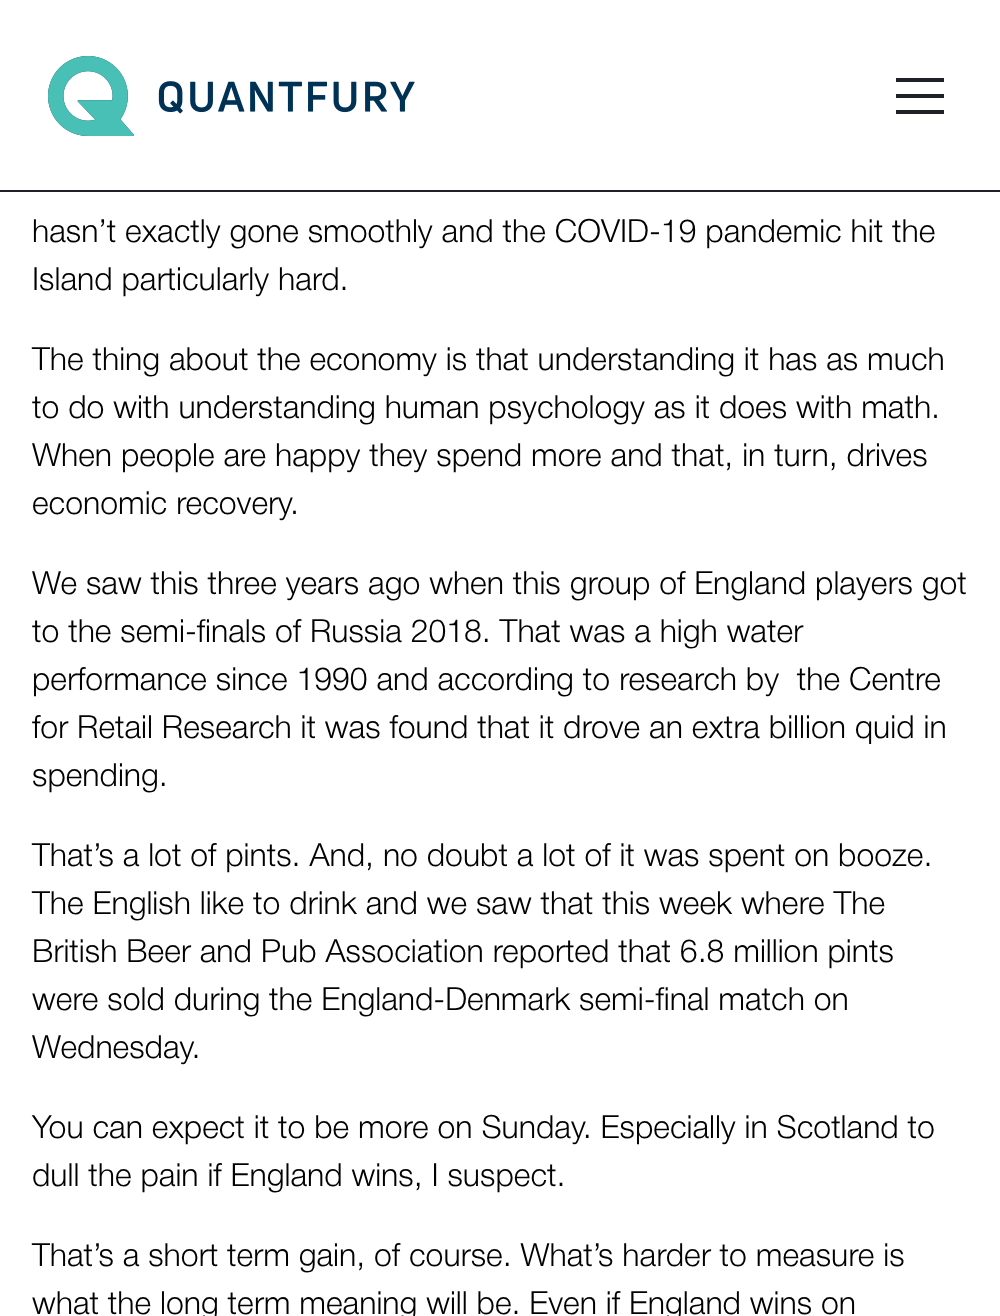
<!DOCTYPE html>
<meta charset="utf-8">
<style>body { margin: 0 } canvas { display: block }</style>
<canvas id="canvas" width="1000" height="1316"></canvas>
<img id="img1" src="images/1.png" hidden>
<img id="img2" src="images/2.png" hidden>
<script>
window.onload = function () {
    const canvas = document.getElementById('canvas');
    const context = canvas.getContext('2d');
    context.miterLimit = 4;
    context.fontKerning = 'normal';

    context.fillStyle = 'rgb(255, 255, 255)';
    context.fillRect(0, 0, 1000, 1316);
    context.fillStyle = 'rgb(29, 32, 38)';
    context.fillRect(0, 190, 1000, 2);
    context.drawImage(document.getElementById('img1'), 48, 56, 367, 80);
    context.drawImage(document.getElementById('img2'), 896, 78, 48, 36);
    context.font = '300 32px Helvetica Neue';
    context.fillStyle = 'rgb(0, 0, 0)';
    context.fillText('hasn’t exactly gone smoothly and the COVID-19 pandemic hit the', 32, 242);
    context.fillText('Island particularly hard.', 32, 290);
    context.fillText('The thing about the economy is that understanding it has as much', 32, 370);
    context.fillText('to do with understanding human psychology as it does with math.', 32, 418);
    context.fillText('When people are happy they spend more and that, in turn, drives', 32, 466);
    context.fillText('economic recovery.', 32, 514);
    context.fillText('We saw this three years ago when this group of England players got', 32, 594);
    context.fillText('to the semi-finals of Russia 2018. That was a high water', 32, 642);
    context.fillText('performance since 1990 and according to research by  the Centre', 32, 690);
    context.fillText('for Retail Research it was found that it drove an extra billion quid in', 32, 738);
    context.fillText('spending.', 32, 786);
    context.fillText('That’s a lot of pints. And, no doubt a lot of it was spent on booze.', 32, 866);
    context.fillText('The English like to drink and we saw that this week where The', 32, 914);
    context.fillText('British Beer and Pub Association reported that 6.8 million pints', 32, 962);
    context.fillText('were sold during the England-Denmark semi-final match on', 32, 1010);
    context.fillText('Wednesday.', 32, 1058);
    context.fillText('You can expect it to be more on Sunday. Especially in Scotland to', 32, 1138);
    context.fillText('dull the pain if England wins, I suspect.', 32, 1186);
    context.fillText('That’s a short term gain, of course. What’s harder to measure is', 32, 1266);
    context.fillText('what the long term meaning will be. Even if England wins on', 32, 1314);
};
</script>
